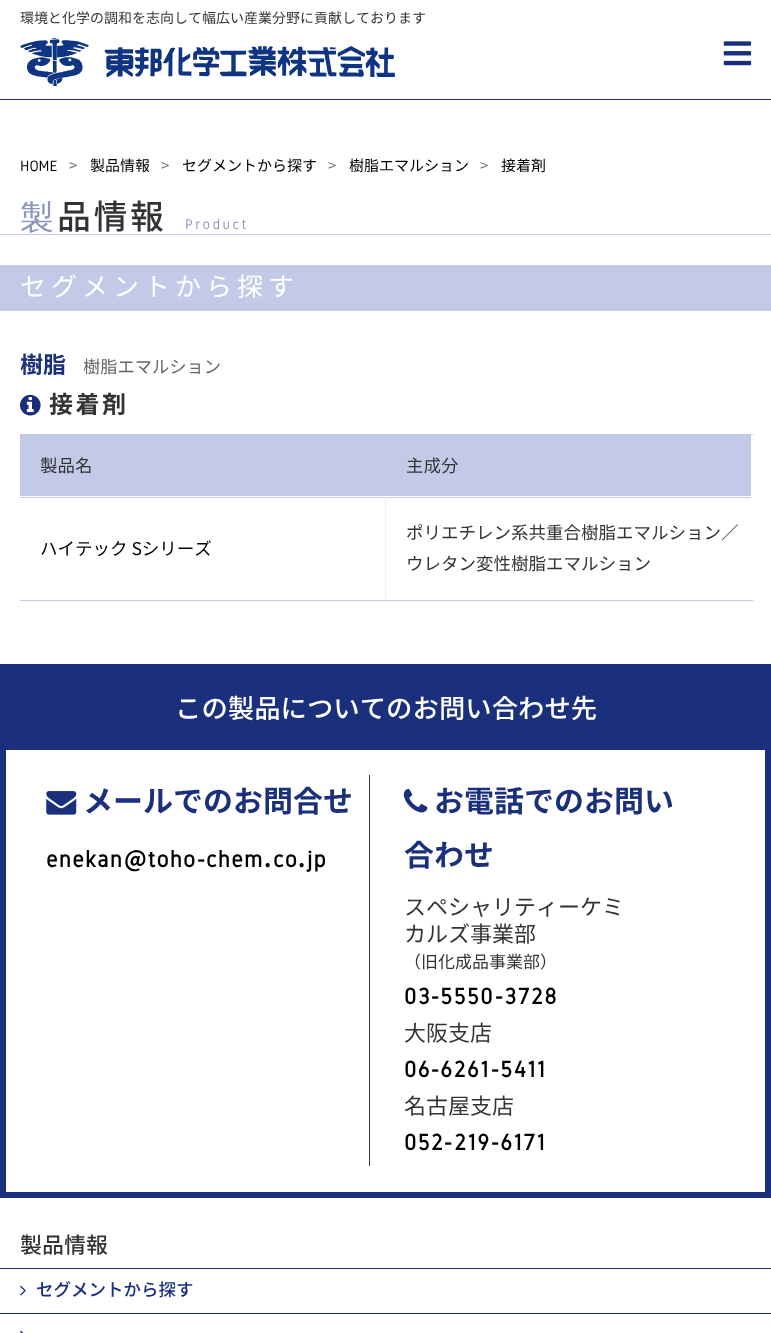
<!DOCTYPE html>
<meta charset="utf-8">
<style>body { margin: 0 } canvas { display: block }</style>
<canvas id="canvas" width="771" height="1333"></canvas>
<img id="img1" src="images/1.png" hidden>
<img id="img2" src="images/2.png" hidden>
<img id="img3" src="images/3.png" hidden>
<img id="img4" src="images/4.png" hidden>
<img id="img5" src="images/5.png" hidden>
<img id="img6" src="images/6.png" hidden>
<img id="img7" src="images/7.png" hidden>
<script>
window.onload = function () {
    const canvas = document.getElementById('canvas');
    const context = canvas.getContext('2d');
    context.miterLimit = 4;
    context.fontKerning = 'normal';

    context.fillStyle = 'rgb(255, 255, 255)';
    context.fillRect(0, 0, 771, 1333);
    context.fillStyle = 'rgb(25, 46, 122)';
    context.fillRect(0, 99, 771, 1);
    context.drawImage(document.getElementById('img1'), 20, 38, 375, 48);
    context.drawImage(document.getElementById('img2'), 723, 41, 29, 25);
    context.fillStyle = 'rgb(195, 202, 232)';
    context.fillRect(0, 234, 771, 1);
    context.fillRect(0, 265, 771, 46);
    context.drawImage(document.getElementById('img3'), 20, 394, 21, 22);
    context.fillRect(20, 435, 731, 63);
    context.fillRect(20, 434, 733, 1);
    context.fillRect(385, 600, 368, 1);
    context.fillStyle = 'rgb(238, 238, 238)';
    context.fillRect(385, 496, 1, 105);
    context.fillStyle = 'rgb(255, 255, 255)';
    context.fillRect(20, 496, 733, 1);
    context.fillStyle = 'rgb(195, 202, 232)';
    context.fillRect(20, 600, 366, 1);
    context.strokeStyle = 'rgb(27, 48, 124)';
    context.lineWidth = 6;
    context.strokeRect(3, 667, 765, 528);
    context.fillStyle = 'rgb(27, 48, 124)';
    context.fillRect(6, 670, 759, 80);
    context.drawImage(document.getElementById('img4'), 46, 791, 31, 24);
    context.fillStyle = 'rgb(51, 51, 51)';
    context.fillRect(369, 775, 1, 391);
    context.drawImage(document.getElementById('img5'), 403, 788, 25, 25);
    context.fillStyle = 'rgb(27, 43, 123)';
    context.fillRect(0, 1268, 771, 1);
    context.fillRect(0, 1313, 771, 1);
    context.drawImage(document.getElementById('img6'), 20, 1285, 6, 11);
    context.drawImage(document.getElementById('img7'), 20, 1330, 4, 3);
    context.font = '14px Noto Sans JP';
    context.fillStyle = 'rgb(51, 51, 51)';
    context.fillText('環境と化学の調和を志向して幅広い産業分野に貢献しております', 20, 23);
    context.font = '15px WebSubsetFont';
    context.fillStyle = 'rgb(0, 0, 0)';
    context.fillText('HOME', 20, 171);
    context.font = '15px Noto Sans JP';
    context.fillStyle = 'rgb(114, 113, 113)';
    context.fillText('>', 69, 171);
    context.fillStyle = 'rgb(0, 0, 0)';
    context.fillText('製品情報', 90, 171);
    context.fillStyle = 'rgb(114, 113, 113)';
    context.fillText('>', 161, 171);
    context.fillStyle = 'rgb(0, 0, 0)';
    context.fillText('セグメントから探す', 182, 171);
    context.fillStyle = 'rgb(114, 113, 113)';
    context.fillText('>', 328, 171);
    context.fillStyle = 'rgb(0, 0, 0)';
    context.fillText('樹脂エマルション', 349, 171);
    context.fillStyle = 'rgb(114, 113, 113)';
    context.fillText('>', 480, 171);
    context.fillStyle = 'rgb(0, 0, 0)';
    context.fillText('接着剤', 501, 171);
    context.letterSpacing = '2.5px';
    context.font = '500 34px Noto Sans';
    context.fillStyle = 'rgb(141, 149, 189)';
    context.fillText('製', 20, 229);
    context.font = '500 34px Noto Sans JP';
    context.fillStyle = 'rgb(51, 51, 51)';
    context.fillText('品情報', 57, 229);
    context.font = '14px WebSubsetFont';
    context.fillStyle = 'rgb(141, 149, 189)';
    context.fillText('Product', 185, 229);
    context.letterSpacing = '5px';
    context.font = '26px Noto Sans JP';
    context.fillStyle = 'rgb(255, 255, 255)';
    context.fillText('セグメントから探す', 20, 296);
    context.letterSpacing = '0px';
    context.font = 'bold 23px Noto Sans JP';
    context.fillStyle = 'rgb(27, 48, 124)';
    context.fillText('樹脂', 20, 373);
    context.font = '17.25px Noto Sans JP';
    context.fillStyle = 'rgb(102, 102, 102)';
    context.fillText('樹脂エマルション', 83, 373);
    context.letterSpacing = '2.5px';
    context.font = 'bold 24px Noto Sans JP';
    context.fillStyle = 'rgb(51, 51, 51)';
    context.fillText('接着剤', 49, 413);
    context.letterSpacing = '0px';
    context.font = '17.5px Noto Sans JP';
    context.fillText('製品名', 40, 472);
    context.fillText('主成分', 406, 472);
    context.fillStyle = 'rgb(0, 0, 0)';
    context.fillText('ハイテック Sシリーズ', 40, 555);
    context.fillStyle = 'rgb(51, 51, 51)';
    context.fillText('ポリエチレン系共重合樹脂エマルション／', 406, 539);
    context.fillText('ウレタン変性樹脂エマルション', 406, 570);
    context.font = '500 26.4px Noto Sans JP';
    context.fillStyle = 'rgb(255, 255, 255)';
    context.fillText('この製品についてのお問い合わせ先', 175, 718);
    context.font = 'bold 30px Noto Sans JP';
    context.fillStyle = 'rgb(27, 48, 124)';
    context.fillText('メールでのお問合せ', 83, 812);
    context.letterSpacing = '1.25px';
    context.font = 'bold 22.5px WebSubsetFont';
    context.fillStyle = 'rgb(0, 0, 0)';
    context.fillText('enekan', 46, 867);
    context.font = 'bold 22.5px Noto Sans JP';
    context.fillText('@', 124, 867);
    context.font = 'bold 22.5px WebSubsetFont';
    context.fillText('toho', 148, 867);
    context.font = 'bold 22.5px Noto Sans JP';
    context.fillText('-', 197, 867);
    context.font = 'bold 22.5px WebSubsetFont';
    context.fillText('chem', 206, 867);
    context.fillText('co', 273, 867);
    context.fillText('jp', 307, 867);
    context.font = 'bold 22.5px Noto Sans JP';
    context.fillText('.', 264, 867);
    context.fillText('.', 298, 867);
    context.letterSpacing = '0px';
    context.font = 'bold 30px Noto Sans JP';
    context.fillStyle = 'rgb(27, 48, 124)';
    context.fillText('お電話でのお問い', 434, 812);
    context.fillText('合わせ', 404, 866);
    context.font = '22px Noto Sans JP';
    context.fillStyle = 'rgb(51, 51, 51)';
    context.fillText('スペシャリティーケミ', 404, 915);
    context.fillText('カルズ事業部', 404, 942);
    context.font = '17px Noto Sans JP';
    context.fillText('（旧化成品事業部）', 404, 968);
    context.letterSpacing = '1.25px';
    context.font = 'bold 22.5px WebSubsetFont';
    context.fillStyle = 'rgb(0, 0, 0)';
    context.fillText('03', 404, 1004);
    context.font = 'bold 22.5px Noto Sans JP';
    context.fillText('-', 431, 1004);
    context.font = 'bold 22.5px WebSubsetFont';
    context.fillText('5550', 440, 1004);
    context.font = 'bold 22.5px Noto Sans JP';
    context.fillText('-', 495, 1004);
    context.font = 'bold 22.5px WebSubsetFont';
    context.fillText('3728', 504, 1004);
    context.letterSpacing = '0px';
    context.font = '22px Noto Sans JP';
    context.fillStyle = 'rgb(51, 51, 51)';
    context.fillText('大阪支店', 404, 1041);
    context.letterSpacing = '1.25px';
    context.font = 'bold 22.5px WebSubsetFont';
    context.fillStyle = 'rgb(0, 0, 0)';
    context.fillText('06', 404, 1077);
    context.font = 'bold 22.5px Noto Sans JP';
    context.fillText('-', 431, 1077);
    context.font = 'bold 22.5px WebSubsetFont';
    context.fillText('6261', 440, 1077);
    context.font = 'bold 22.5px Noto Sans JP';
    context.fillText('-', 491, 1077);
    context.font = 'bold 22.5px WebSubsetFont';
    context.fillText('5411', 500, 1077);
    context.letterSpacing = '0px';
    context.font = '22px Noto Sans JP';
    context.fillStyle = 'rgb(51, 51, 51)';
    context.fillText('名古屋支店', 404, 1114);
    context.letterSpacing = '1.25px';
    context.font = 'bold 22.5px WebSubsetFont';
    context.fillStyle = 'rgb(0, 0, 0)';
    context.fillText('052', 404, 1150);
    context.font = 'bold 22.5px Noto Sans JP';
    context.fillText('-', 444, 1150);
    context.font = 'bold 22.5px WebSubsetFont';
    context.fillText('219', 454, 1150);
    context.font = 'bold 22.5px Noto Sans JP';
    context.fillText('-', 491, 1150);
    context.font = 'bold 22.5px WebSubsetFont';
    context.fillText('6171', 500, 1150);
    context.letterSpacing = '0px';
    context.font = '500 22px Noto Sans JP';
    context.fillStyle = 'rgb(51, 51, 51)';
    context.fillText('製品情報', 20, 1253);
    context.font = '500 17.5px Noto Sans JP';
    context.fillStyle = 'rgb(27, 48, 124)';
    context.fillText('セグメントから探す', 36, 1296);
};
</script>
